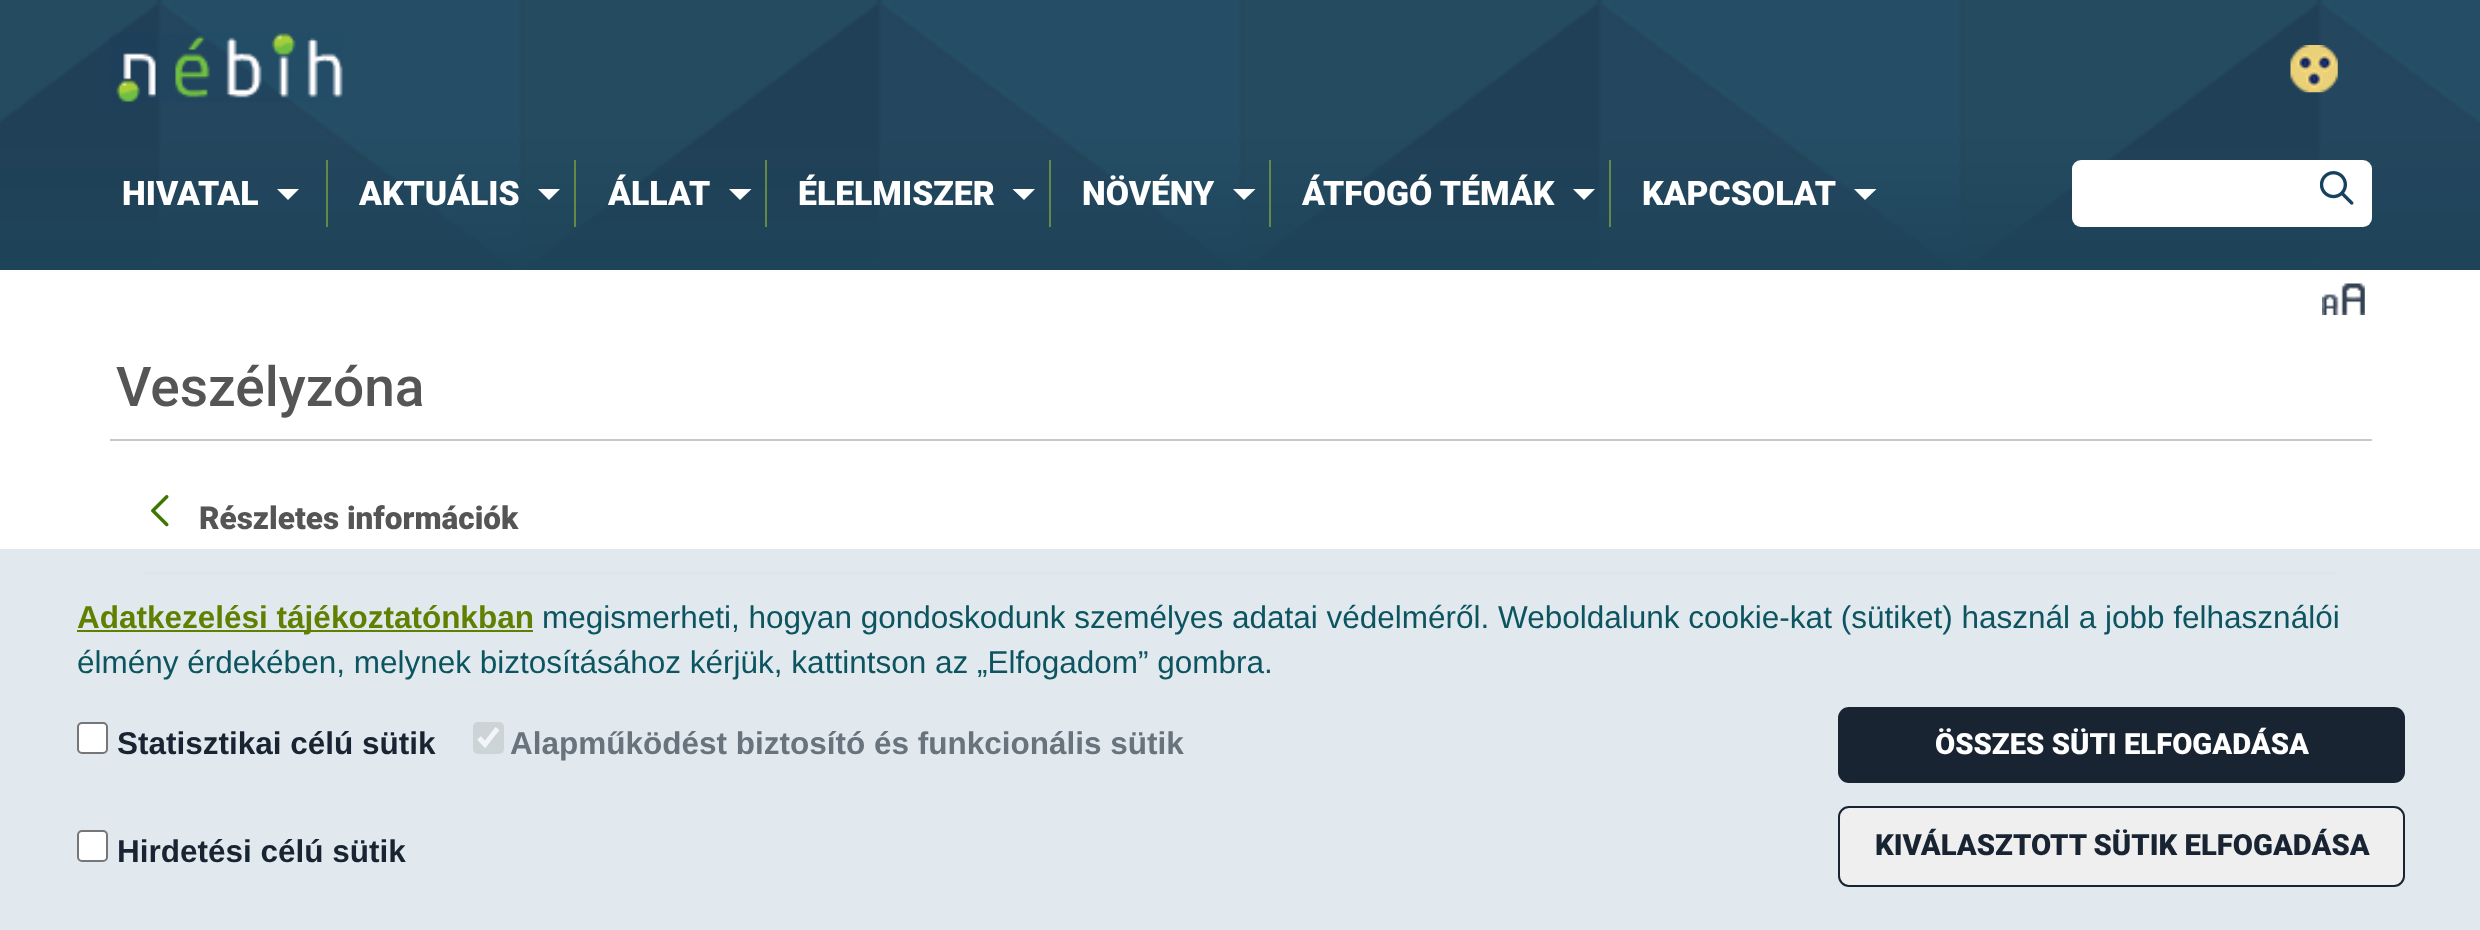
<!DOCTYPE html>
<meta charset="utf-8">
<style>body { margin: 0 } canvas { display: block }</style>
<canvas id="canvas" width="2480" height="930"></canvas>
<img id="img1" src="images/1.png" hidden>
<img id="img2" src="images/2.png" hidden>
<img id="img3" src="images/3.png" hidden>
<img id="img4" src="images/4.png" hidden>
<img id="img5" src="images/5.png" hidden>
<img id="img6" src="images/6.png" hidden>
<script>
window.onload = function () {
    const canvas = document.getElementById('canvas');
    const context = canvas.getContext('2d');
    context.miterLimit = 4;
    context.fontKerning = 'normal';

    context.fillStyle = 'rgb(255, 255, 255)';
    context.fillRect(0, 0, 2480, 930);
    context.fillStyle = 'rgb(225, 233, 238)';
    context.fillRect(0, 549, 2480, 381);
    context.drawImage(document.getElementById('img1'), 0, 0, 2480, 270);
    context.drawImage(document.getElementById('img2'), 110, 33, 233, 69);
    context.drawImage(document.getElementById('img3'), 2290, 45, 48, 48);
    context.fillStyle = 'rgb(99, 136, 72)';
    context.fillRect(326, 160, 2, 67);
    context.fillStyle = 'rgb(255, 255, 255)';
    context.beginPath();
    context.moveTo(277, 189);
    context.lineTo(299, 189);
    context.lineTo(288, 200);
    context.closePath();
    context.fill();
    context.fillStyle = 'rgb(99, 136, 72)';
    context.fillRect(574, 160, 2, 67);
    context.fillStyle = 'rgb(255, 255, 255)';
    context.beginPath();
    context.moveTo(538, 189);
    context.lineTo(560, 189);
    context.lineTo(549, 200);
    context.closePath();
    context.fill();
    context.fillStyle = 'rgb(99, 136, 72)';
    context.fillRect(765, 160, 2, 67);
    context.fillStyle = 'rgb(255, 255, 255)';
    context.beginPath();
    context.moveTo(729, 189);
    context.lineTo(751.5, 189);
    context.lineTo(740, 200);
    context.closePath();
    context.fill();
    context.fillStyle = 'rgb(99, 136, 72)';
    context.fillRect(1049, 160, 2, 67);
    context.fillStyle = 'rgb(255, 255, 255)';
    context.beginPath();
    context.moveTo(1012.5, 189);
    context.lineTo(1035, 189);
    context.lineTo(1024, 200);
    context.closePath();
    context.fill();
    context.fillStyle = 'rgb(99, 136, 72)';
    context.fillRect(1269, 160, 2, 67);
    context.fillStyle = 'rgb(255, 255, 255)';
    context.beginPath();
    context.moveTo(1233, 189);
    context.lineTo(1255.5, 189);
    context.lineTo(1244, 200);
    context.closePath();
    context.fill();
    context.fillStyle = 'rgb(99, 136, 72)';
    context.fillRect(1609, 160, 2, 67);
    context.fillStyle = 'rgb(255, 255, 255)';
    context.beginPath();
    context.moveTo(1573, 189);
    context.lineTo(1595, 189);
    context.lineTo(1584, 200);
    context.closePath();
    context.fill();
    context.beginPath();
    context.moveTo(1854, 189);
    context.lineTo(1876.5, 189);
    context.lineTo(1865, 200);
    context.closePath();
    context.fill();
    context.beginPath();
    context.roundRect(2072, 160, 300, 67, 9);
    context.fill();
    context.drawImage(document.getElementById('img4'), 2320, 171, 34, 34);
    context.drawImage(document.getElementById('img5'), 2322, 283, 43, 32);
    context.fillStyle = 'rgb(200, 201, 202)';
    context.fillRect(110, 439, 2262, 2);
    context.fillStyle = 'rgb(222, 230, 235)';
    context.fillRect(144, 572, 2194, 2);
    context.drawImage(document.getElementById('img6'), 151, 495, 18, 32);
    context.fillStyle = 'rgb(95, 128, 1)';
    context.fillRect(77, 630, 456, 2);
    context.fillStyle = 'rgb(255, 255, 255)';
    context.beginPath();
    context.roundRect(78, 723, 29, 30, 4);
    context.fill();
    context.strokeStyle = 'rgb(118, 118, 118)';
    context.lineWidth = 2;
    context.stroke();
    context.beginPath();
    context.roundRect(78, 831, 29, 30, 4);
    context.fill();
    context.stroke();
    context.fillStyle = 'rgb(205, 212, 216)';
    context.beginPath();
    context.roundRect(473, 722, 31, 32, 5);
    context.fill();
    context.beginPath();
    context.moveTo(479, 738);
    context.lineTo(485, 744.5);
    context.lineTo(497.5, 728.5);
    context.strokeStyle = 'rgb(243, 246, 248)';
    context.lineWidth = 5;
    context.stroke();
    context.fillStyle = 'rgb(25, 36, 51)';
    context.beginPath();
    context.roundRect(1838, 707, 567, 76, 11);
    context.fill();
    context.fillStyle = 'rgb(239, 239, 239)';
    context.beginPath();
    context.roundRect(1839, 807, 565, 79, 10);
    context.fill();
    context.strokeStyle = 'rgb(25, 36, 51)';
    context.lineWidth = 2;
    context.stroke();
    context.font = '900 33.75px Roboto';
    context.fillStyle = 'rgb(255, 255, 255)';
    context.fillText('HIVATAL', 122, 205);
    context.fillText('AKTUÁLIS', 359, 205);
    context.fillText('ÁLLAT', 608, 205);
    context.fillText('ÉLELMISZER', 798, 205);
    context.fillText('NÖVÉNY', 1082, 205);
    context.fillText('ÁTFOGÓ TÉMÁK', 1302, 205);
    context.fillText('KAPCSOLAT', 1642, 205);
    context.font = '500 55px Roboto';
    context.fillStyle = 'rgb(85, 85, 85)';
    context.fillText('Veszélyzóna', 116, 406);
    context.font = '900 31.5px Roboto';
    context.fillText('Részletes információk', 199, 529);
    context.font = 'bold 31.5px Liberation Sans';
    context.fillStyle = 'rgb(95, 128, 1)';
    context.fillText('Adatkezelési tájékoztatónkban', 77, 628);
    context.font = '31.5px Liberation Sans';
    context.fillStyle = 'rgb(12, 84, 96)';
    context.fillText('megismerheti, hogyan gondoskodunk személyes adatai védelméről. Weboldalunk cookie-kat (sütiket) használ a jobb felhasználói', 542, 628);
    context.fillText('élmény érdekében, melynek biztosításához kérjük, kattintson az „Elfogadom” gombra.', 77, 673);
    context.font = 'bold 31.5px Liberation Sans';
    context.fillStyle = 'rgb(25, 36, 51)';
    context.fillText('Statisztikai célú sütik', 117, 754);
    context.fillText('Hirdetési célú sütik', 117, 862);
    context.fillStyle = 'rgb(105, 115, 126)';
    context.fillText('Alapműködést biztosító és funkcionális sütik', 510, 754);
    context.font = '900 29.25px Roboto';
    context.fillStyle = 'rgb(255, 255, 255)';
    context.fillText('ÖSSZES SÜTI ELFOGADÁSA', 1935, 754);
    context.fillStyle = 'rgb(25, 36, 51)';
    context.fillText('KIVÁLASZTOTT SÜTIK ELFOGADÁSA', 1875, 855);
};
</script>
